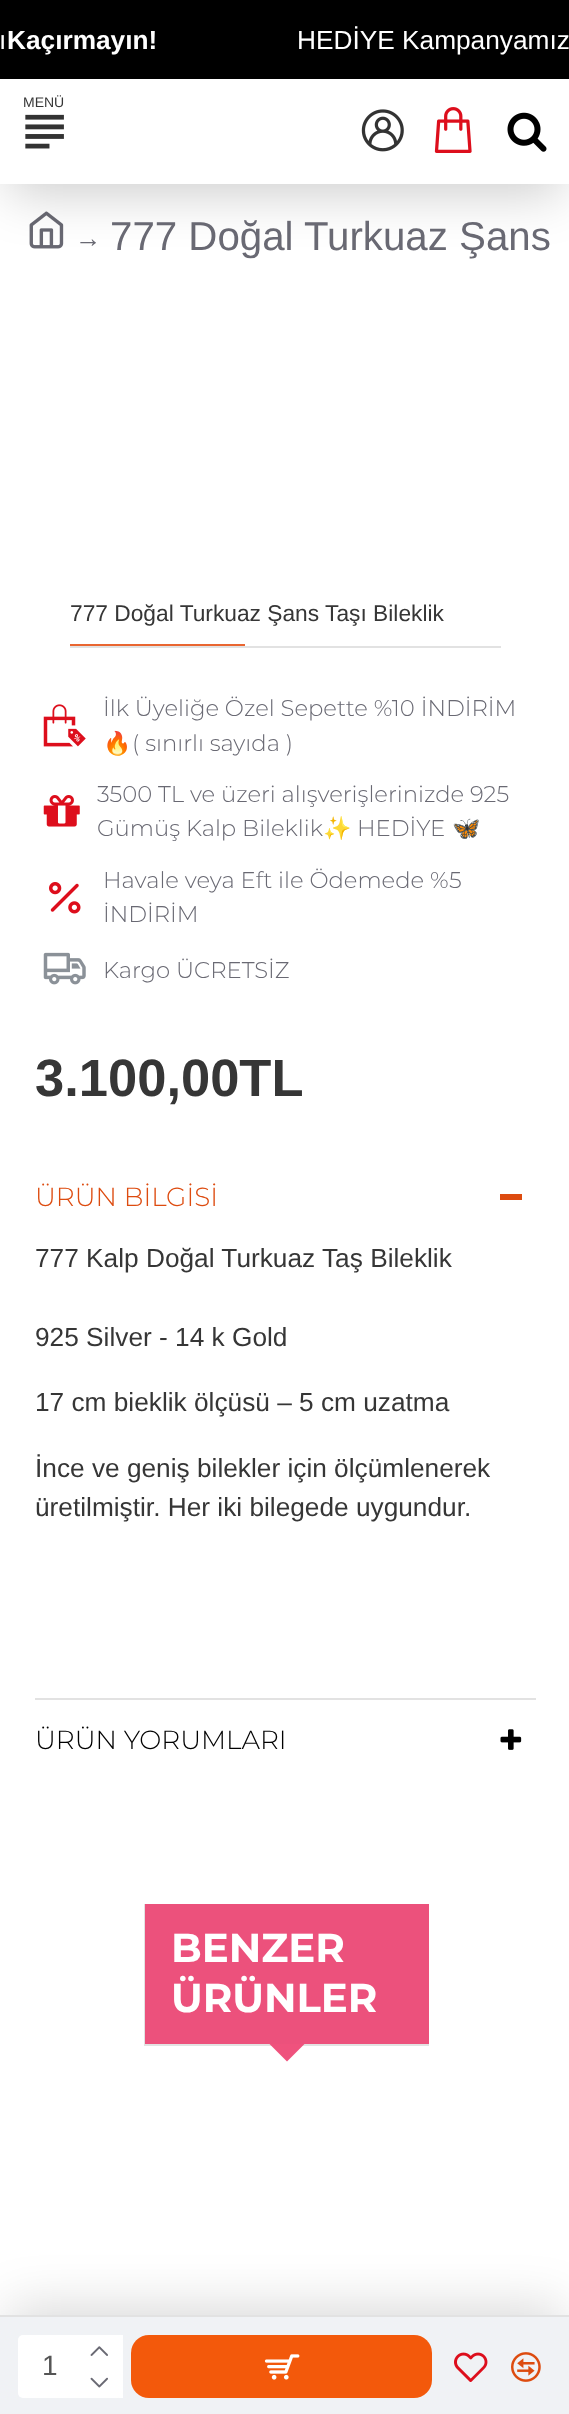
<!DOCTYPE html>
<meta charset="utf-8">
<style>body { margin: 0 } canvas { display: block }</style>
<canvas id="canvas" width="569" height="2414"></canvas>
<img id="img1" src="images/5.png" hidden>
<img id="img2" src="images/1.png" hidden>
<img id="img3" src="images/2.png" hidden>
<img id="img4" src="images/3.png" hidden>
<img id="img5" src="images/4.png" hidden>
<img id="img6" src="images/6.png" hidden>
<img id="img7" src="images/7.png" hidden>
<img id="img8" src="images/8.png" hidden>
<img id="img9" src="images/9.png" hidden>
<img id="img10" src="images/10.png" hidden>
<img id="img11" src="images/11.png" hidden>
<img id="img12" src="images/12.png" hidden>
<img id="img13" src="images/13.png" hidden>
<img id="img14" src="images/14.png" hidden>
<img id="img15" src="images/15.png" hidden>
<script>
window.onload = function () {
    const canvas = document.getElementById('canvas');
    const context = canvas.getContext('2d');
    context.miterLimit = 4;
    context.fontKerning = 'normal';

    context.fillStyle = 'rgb(255, 255, 255)';
    context.fillRect(0, 0, 569, 2414);
    context.fillStyle = 'rgb(0, 0, 0)';
    context.fillRect(0, 0, 569, 79);
    context.drawImage(document.getElementById('img1'), 29, 211, 35, 38);
    context.fillStyle = 'rgba(0, 0, 0, 0.2)';
    context.filter = 'blur(26px)';
    context.beginPath();
    context.rect(9, 105, 553, 88);
    context.fill();
    context.filter = 'none';
    context.fillStyle = 'rgb(255, 255, 255)';
    context.fillRect(0, 79, 569, 105);
    context.drawImage(document.getElementById('img2'), 25, 114, 39, 35);
    context.drawImage(document.getElementById('img3'), 361, 109, 43, 43);
    context.drawImage(document.getElementById('img4'), 434, 107, 38, 46);
    context.drawImage(document.getElementById('img5'), 507, 112, 40, 40);
    context.fillStyle = 'rgb(226, 226, 226)';
    context.fillRect(70, 646, 431, 2);
    context.fillStyle = 'rgb(233, 102, 49)';
    context.fillRect(70, 644, 175, 2);
    context.drawImage(document.getElementById('img6'), 43, 704, 43, 43);
    context.drawImage(document.getElementById('img7'), 43, 795, 37, 32);
    context.drawImage(document.getElementById('img8'), 49, 882, 32, 32);
    context.drawImage(document.getElementById('img9'), 43, 952, 43, 33);
    context.fillStyle = 'rgba(0, 0, 0, 0.15)';
    context.filter = 'blur(26px)';
    context.beginPath();
    context.rect(9, 2307, 553, 82);
    context.fill();
    context.filter = 'none';
    context.fillStyle = 'rgb(240, 242, 245)';
    context.fillRect(0, 2317, 569, 97);
    context.fillStyle = 'rgb(226, 226, 226)';
    context.fillRect(0, 2315, 569, 2);
    context.fillStyle = 'rgb(255, 255, 255)';
    context.beginPath();
    context.roundRect(18, 2335, 105, 63, 5);
    context.fill();
    context.fillRect(119, 2335, 4, 4);
    context.drawImage(document.getElementById('img10'), 90, 2346, 18, 10);
    context.fillRect(119, 2394, 4, 4);
    context.drawImage(document.getElementById('img11'), 90, 2377, 18, 11);
    context.fillStyle = 'rgb(243, 89, 11)';
    context.beginPath();
    context.roundRect(131, 2335, 301, 63, 18);
    context.fill();
    context.drawImage(document.getElementById('img12'), 264, 2354, 36, 26);
    context.drawImage(document.getElementById('img13'), 454, 2352, 34, 30);
    context.drawImage(document.getElementById('img14'), 511, 2352, 30, 30);
    context.fillStyle = 'rgb(221, 75, 15)';
    context.fillRect(500, 1194, 22, 6);
    context.fillStyle = 'rgb(226, 226, 226)';
    context.fillRect(35, 1698, 501, 2);
    context.drawImage(document.getElementById('img15'), 500, 1729, 22, 21);
    context.fillRect(144, 2044, 285, 2);
    context.fillRect(144, 1904, 2, 142);
    context.fillStyle = 'rgb(236, 81, 124)';
    context.fillRect(145, 1904, 284, 140);
    context.fillStyle = 'rgb(239, 82, 125)';
    context.beginPath();
    context.moveTo(269.5, 2044);
    context.lineTo(304.5, 2044);
    context.lineTo(287, 2061.5);
    context.closePath();
    context.fill();
    context.font = '26.25px Liberation Sans';
    context.fillStyle = 'rgb(255, 255, 255)';
    context.fillText('ı', -1, 49);
    context.font = 'bold 26.25px Liberation Sans';
    context.fillText('Kaçırmayın!', 7, 49);
    context.font = '26.25px Liberation Sans';
    context.fillText('HEDİYE Kampanyamız', 297, 49);
    context.font = '14px Liberation Sans';
    context.fillStyle = 'rgb(54, 54, 54)';
    context.fillText('MENÜ', 23, 107);
    context.font = '26.25px Liberation Sans';
    context.fillStyle = 'rgb(105, 105, 115)';
    context.fillText('→', 75, 247);
    context.font = '40.25px Liberation Sans';
    context.fillText('777 Doğal Turkuaz Şans', 110, 250);
    context.font = '22.75px Liberation Sans';
    context.fillStyle = 'rgb(54, 54, 54)';
    context.fillText('777 Doğal Turkuaz Şans Taşı Bileklik', 70, 621);
    context.font = '300 22.75px Montserrat';
    context.fillStyle = 'rgb(105, 105, 115)';
    context.fillText('İlk Üyeliğe Özel Sepette %10 İNDİRİM', 103, 716);
    context.font = '22.75px Noto Color Emoji';
    context.fillText('🔥', 103, 751);
    context.font = '300 22.75px Montserrat';
    context.fillText('( sınırlı sayıda )', 132, 751);
    context.fillText('3500 TL ve üzeri alışverişlerinizde 925', 97, 802);
    context.fillText('Gümüş Kalp Bileklik', 97, 836);
    context.font = '22.75px Noto Color Emoji';
    context.fillText('✨', 323, 836);
    context.font = '300 22.75px Montserrat';
    context.fillText('HEDİYE', 357, 836);
    context.font = '22.75px Noto Color Emoji';
    context.fillText('🦋', 452, 836);
    context.font = '300 22.75px Montserrat';
    context.fillText('Havale veya Eft ile Ödemede %5', 103, 888);
    context.fillText('İNDİRİM', 103, 922);
    context.fillText('Kargo ÜCRETSİZ', 103, 978);
    context.font = 'bold 52.5px Liberation Sans';
    context.fillStyle = 'rgb(54, 54, 54)';
    context.fillText('3.100,00TL', 35, 1096);
    context.font = '28px Liberation Sans';
    context.fillStyle = 'rgb(85, 85, 85)';
    context.fillText('1', 42, 2375);
    context.font = '300 26.25px Montserrat';
    context.fillStyle = 'rgb(221, 75, 15)';
    context.fillText('ÜRÜN BİLGİSİ', 35, 1206);
    context.font = '26.25px Liberation Sans';
    context.fillStyle = 'rgb(54, 54, 54)';
    context.fillText('777 Kalp Doğal Turkuaz Taş Bileklik', 35, 1267);
    context.fillText('925 Silver - 14 k Gold', 35, 1346);
    context.fillText('17 cm bieklik ölçüsü – 5 cm uzatma', 35, 1411);
    context.fillText('İnce ve geniş bilekler için ölçümlenerek', 35, 1477);
    context.fillText('üretilmiştir. Her iki bilegede uygundur.', 35, 1516);
    context.font = '300 26.25px Montserrat';
    context.fillStyle = 'rgb(0, 0, 0)';
    context.fillText('ÜRÜN YORUMLARI', 35, 1749);
    context.font = 'bold 40.25px Montserrat';
    context.fillStyle = 'rgb(255, 255, 255)';
    context.fillText('BENZER', 171, 1962);
    context.fillText('ÜRÜNLER', 171, 2012);
};
</script>
